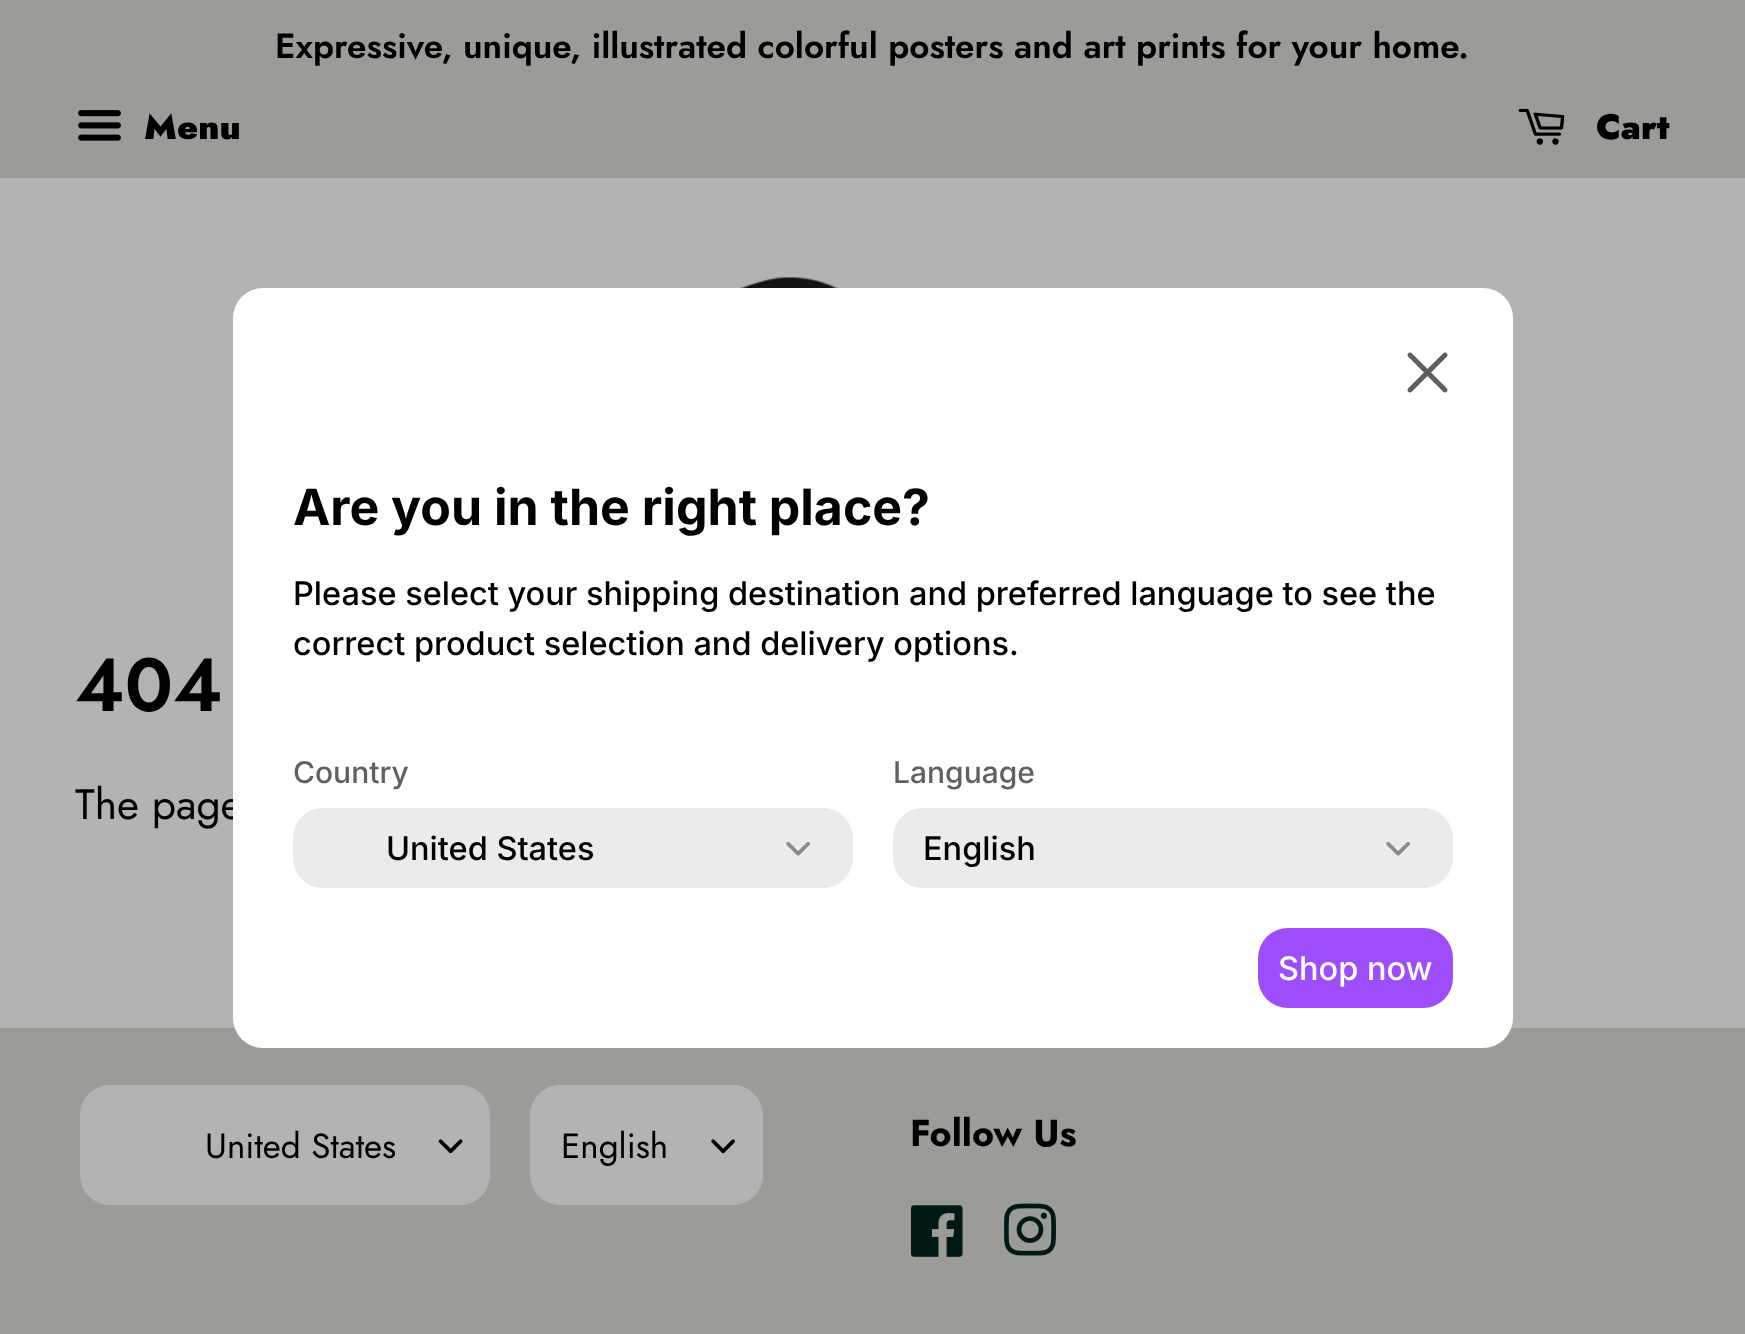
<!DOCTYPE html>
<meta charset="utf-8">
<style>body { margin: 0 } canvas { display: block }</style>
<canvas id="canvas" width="1745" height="1334"></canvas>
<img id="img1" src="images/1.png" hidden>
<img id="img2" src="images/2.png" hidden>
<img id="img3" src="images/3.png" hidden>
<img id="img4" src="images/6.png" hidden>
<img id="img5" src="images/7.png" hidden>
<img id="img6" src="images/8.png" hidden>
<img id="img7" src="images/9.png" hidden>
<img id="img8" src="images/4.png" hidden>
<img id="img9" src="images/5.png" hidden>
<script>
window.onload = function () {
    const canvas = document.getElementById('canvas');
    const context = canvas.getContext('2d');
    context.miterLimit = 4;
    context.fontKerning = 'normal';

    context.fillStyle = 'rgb(179, 179, 179)';
    context.fillRect(0, 0, 1745, 1334);
    context.fillStyle = 'rgb(155, 155, 151)';
    context.fillRect(0, 0, 1745, 178);
    context.drawImage(document.getElementById('img1'), 78, 110, 43, 31);
    context.drawImage(document.getElementById('img2'), 1518, 108, 47, 37);
    context.drawImage(document.getElementById('img3'), 622, 277, 497, 11);
    context.fillRect(0, 1028, 1745, 306);
    context.fillStyle = 'rgb(179, 179, 179)';
    context.beginPath();
    context.roundRect(80, 1085, 410, 120, 30);
    context.fill();
    context.drawImage(document.getElementById('img4'), 438, 1139, 25, 15);
    context.beginPath();
    context.roundRect(530, 1085, 233, 120, 30);
    context.fill();
    context.drawImage(document.getElementById('img5'), 711, 1139, 24, 15);
    context.drawImage(document.getElementById('img6'), 910, 1205, 53, 52);
    context.drawImage(document.getElementById('img7'), 1004, 1203, 52, 53);
    context.font = '600 35px Jost';
    context.fillStyle = 'rgb(0, 0, 0)';
    context.fillText('Expressive, unique, illustrated colorful posters and art prints for your home.', 275, 58);
    context.font = '900 35px Jost';
    context.fillText('Menu', 144, 139);
    context.fillText('Cart', 1596, 139);
    context.font = '600 75px Jost';
    context.fillText('404', 75, 711);
    context.font = '42.5px Jost';
    context.fillText('The page', 75, 819);
    context.fillStyle = 'rgb(255, 255, 255)';
    context.beginPath();
    context.roundRect(233, 288, 1280, 760, 30);
    context.fill();
    context.drawImage(document.getElementById('img8'), 1407, 352, 41, 41);
    context.font = 'bold 50px Inter';
    context.fillStyle = 'rgb(0, 0, 0)';
    context.fillText('Are you in the right place?', 293, 525);
    context.font = '500 32.5px Inter';
    context.fillText('Please select your shipping destination and preferred language to see the', 293, 605);
    context.fillText('correct product selection and delivery options.', 293, 655);
    context.font = '500 30px Inter';
    context.fillStyle = 'rgb(97, 95, 95)';
    context.fillText('Country', 293, 783);
    context.fillStyle = 'rgb(235, 235, 235)';
    context.beginPath();
    context.roundRect(293, 808, 560, 80, 30);
    context.fill();
    context.font = '500 32.5px Inter';
    context.fillStyle = 'rgb(0, 0, 0)';
    context.fillText('United States', 386, 860);
    context.drawImage(document.getElementById('img9'), 786, 841, 24, 15);
    context.font = '500 30px Inter';
    context.fillStyle = 'rgb(97, 95, 95)';
    context.fillText('Language', 893, 783);
    context.fillStyle = 'rgb(235, 235, 235)';
    context.beginPath();
    context.roundRect(893, 808, 560, 80, 30);
    context.fill();
    context.font = '500 32.5px Inter';
    context.fillStyle = 'rgb(0, 0, 0)';
    context.fillText('English', 923, 860);
    context.drawImage(document.getElementById('img9'), 1386, 841, 24, 15);
    context.fillStyle = 'rgb(157, 77, 252)';
    context.beginPath();
    context.roundRect(1258, 928, 195, 80, 30);
    context.fill();
    context.fillStyle = 'rgb(255, 255, 255)';
    context.fillText('Shop now', 1278, 980);
    context.font = '35px Jost';
    context.fillStyle = 'rgb(0, 0, 0)';
    context.fillText('United States', 205, 1158);
    context.fillText('English', 561, 1158);
    context.font = 'bold 37.5px Jost';
    context.fillText('Follow Us', 910, 1146);
};
</script>
